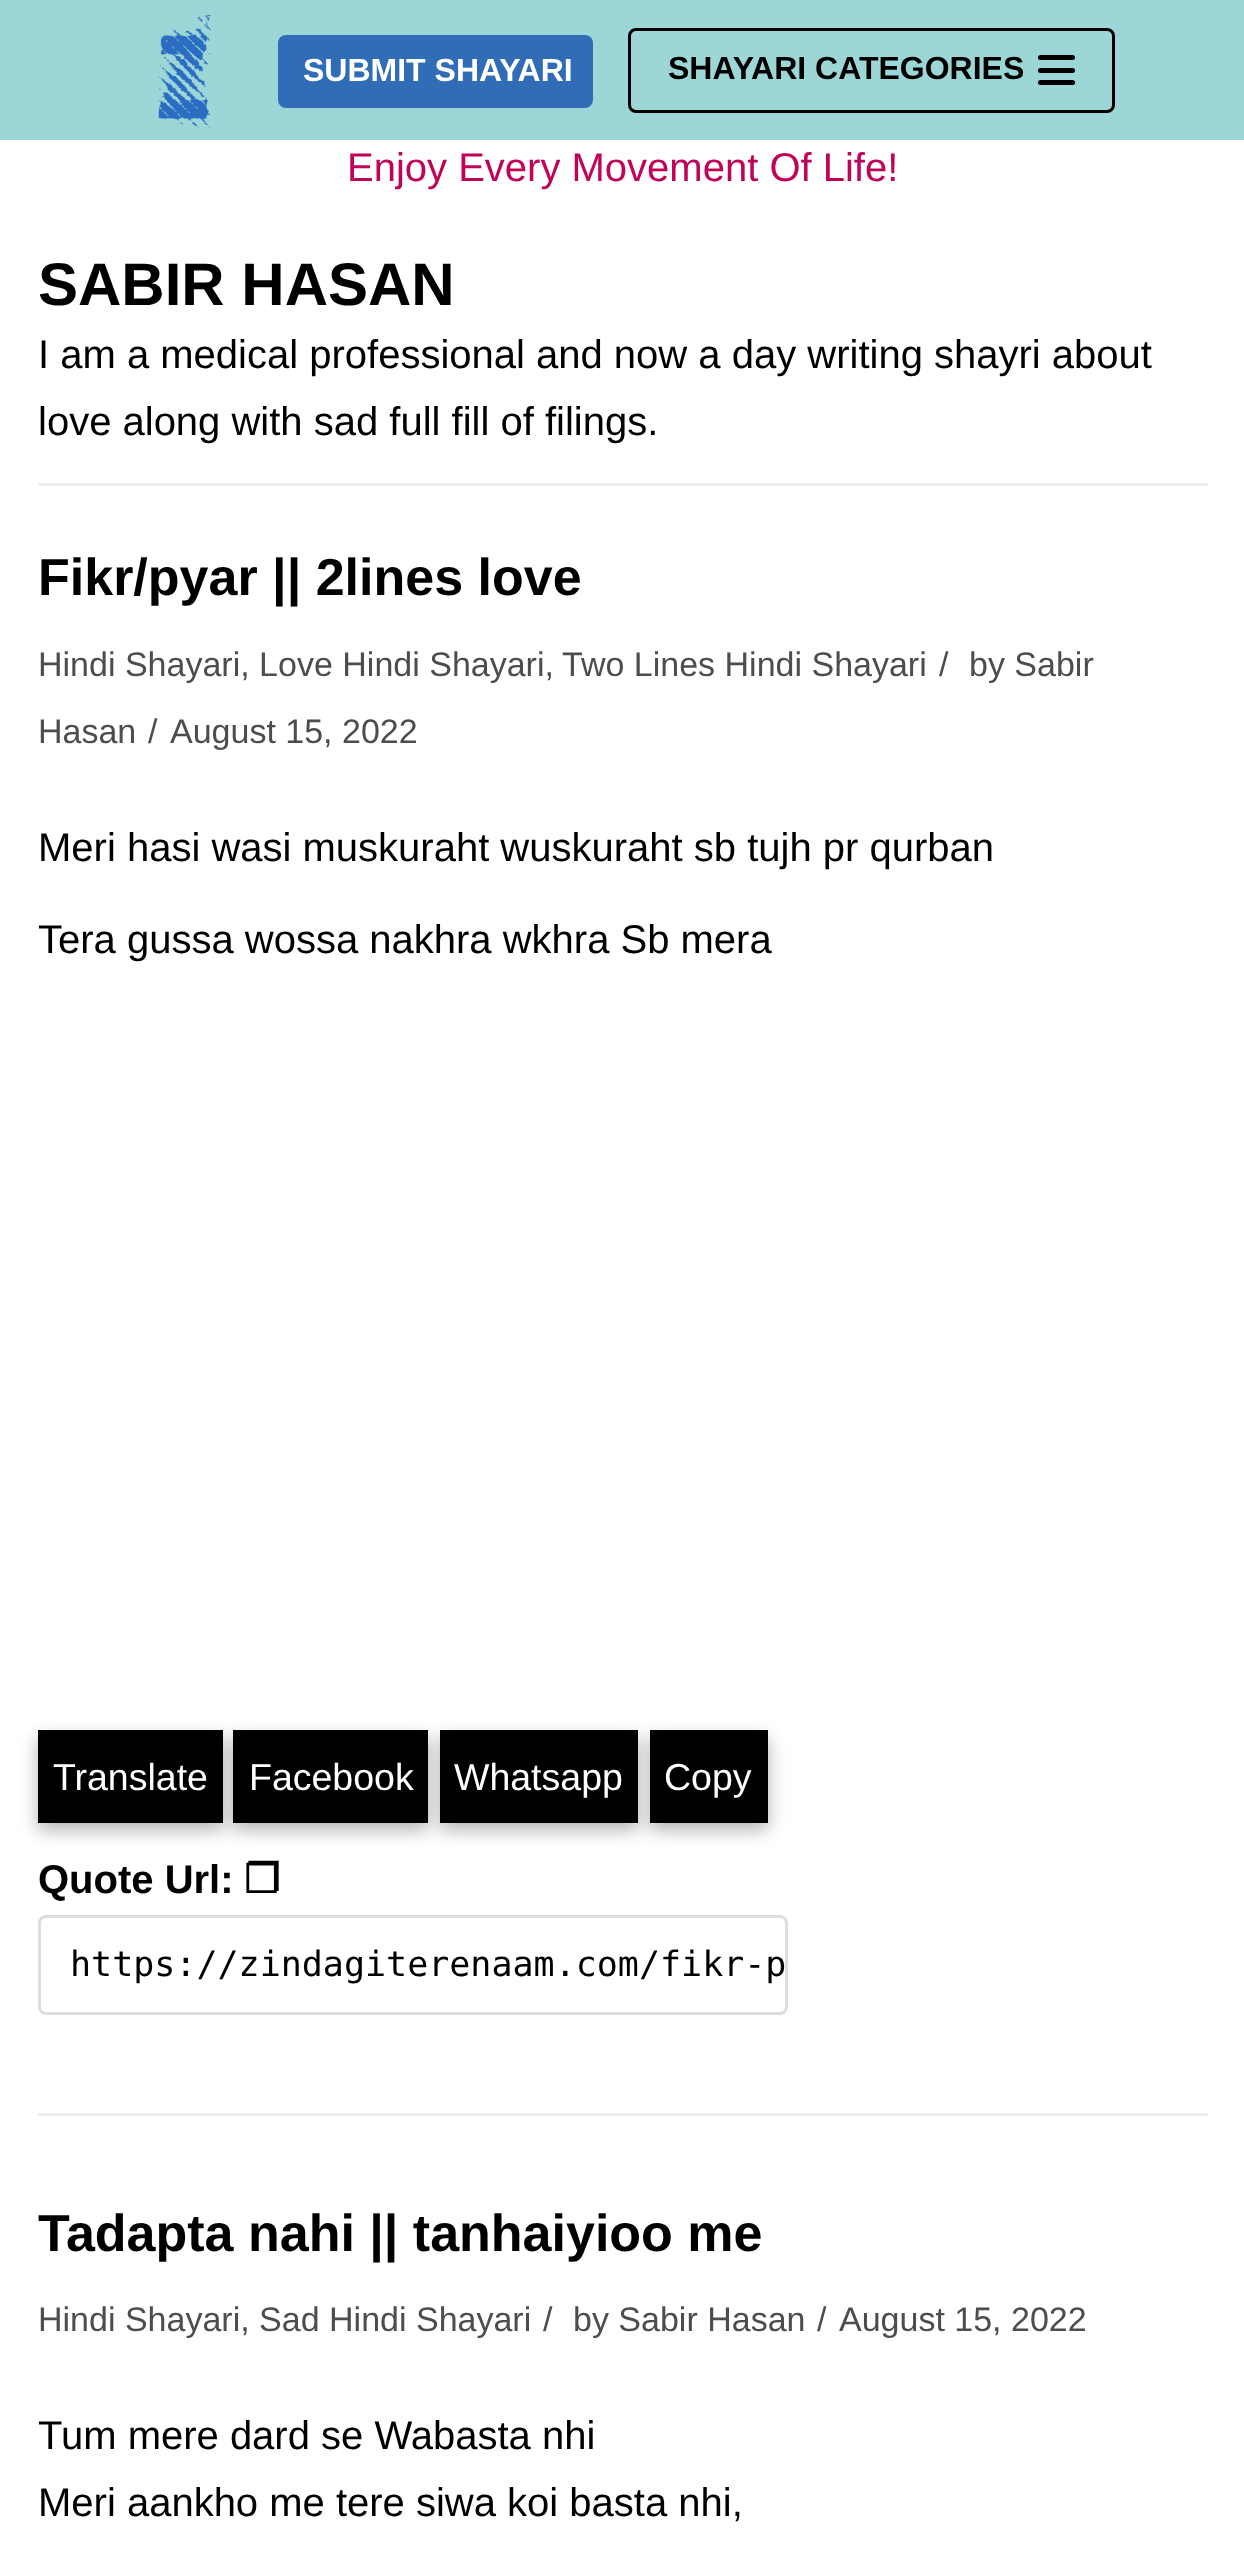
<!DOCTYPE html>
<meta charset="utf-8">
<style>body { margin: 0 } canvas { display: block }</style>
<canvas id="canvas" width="1244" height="2565"></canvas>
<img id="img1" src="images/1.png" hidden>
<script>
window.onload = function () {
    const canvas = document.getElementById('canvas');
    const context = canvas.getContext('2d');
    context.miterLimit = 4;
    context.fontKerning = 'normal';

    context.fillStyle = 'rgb(255, 255, 255)';
    context.fillRect(0, 0, 1244, 2565);
    context.fillStyle = 'rgb(157, 214, 214)';
    context.fillRect(0, 0, 1244, 140);
    context.drawImage(document.getElementById('img1'), 158, 15, 53, 113);
    context.fillStyle = 'rgb(49, 109, 182)';
    context.beginPath();
    context.roundRect(278, 35, 315, 73, 8);
    context.fill();
    context.beginPath();
    context.roundRect(629.5, 29.5, 484, 82, 6.5);
    context.strokeStyle = 'rgb(0, 0, 0)';
    context.lineWidth = 3;
    context.stroke();
    context.fillStyle = 'rgb(0, 0, 0)';
    context.beginPath();
    context.roundRect(1038, 55, 37, 5, 2.5);
    context.fill();
    context.beginPath();
    context.roundRect(1038, 68, 37, 5, 2.5);
    context.fill();
    context.beginPath();
    context.roundRect(1038, 80, 37, 5, 2.5);
    context.fill();
    context.fillStyle = 'rgb(237, 237, 237)';
    context.fillRect(38, 483, 1170, 3);
    context.fillRect(38, 2113, 1170, 3);
    context.fillStyle = 'rgba(0, 0, 0, 0.3)';
    context.filter = 'blur(9px)';
    context.beginPath();
    context.rect(38, 1738, 185, 92);
    context.fill();
    context.filter = 'none';
    context.fillStyle = 'rgb(0, 0, 0)';
    context.fillRect(38, 1730, 185, 93);
    context.fillStyle = 'rgba(0, 0, 0, 0.3)';
    context.filter = 'blur(9px)';
    context.beginPath();
    context.rect(233, 1738, 195, 92);
    context.fill();
    context.filter = 'none';
    context.fillStyle = 'rgb(0, 0, 0)';
    context.fillRect(233, 1730, 195, 93);
    context.fillStyle = 'rgba(0, 0, 0, 0.3)';
    context.filter = 'blur(9px)';
    context.beginPath();
    context.rect(440, 1738, 198, 92);
    context.fill();
    context.filter = 'none';
    context.fillStyle = 'rgb(0, 0, 0)';
    context.fillRect(440, 1730, 198, 93);
    context.fillStyle = 'rgba(0, 0, 0, 0.3)';
    context.filter = 'blur(9px)';
    context.beginPath();
    context.rect(650, 1738, 118, 92);
    context.fill();
    context.filter = 'none';
    context.fillStyle = 'rgb(0, 0, 0)';
    context.fillRect(650, 1730, 118, 93);
    context.beginPath();
    context.roundRect(39.5, 1916.5, 747, 97, 6.5);
    context.strokeStyle = 'rgb(221, 221, 221)';
    context.stroke();
    context.font = 'bold 32px Liberation Sans';
    context.fillStyle = 'rgb(255, 255, 255)';
    context.fillText('SUBMIT SHAYARI', 303, 81);
    context.fillStyle = 'rgb(0, 0, 0)';
    context.fillText('SHAYARI CATEGORIES', 668, 79);
    context.font = '40px Liberation Sans';
    context.fillStyle = 'rgb(192, 2, 88)';
    context.fillText('Enjoy Every Movement Of Life!', 347, 181);
    context.font = 'bold 60px Liberation Sans';
    context.fillStyle = 'rgb(0, 0, 0)';
    context.fillText('SABIR HASAN', 38, 305);
    context.font = '40px Liberation Sans';
    context.fillText('I am a medical professional and now a day writing shayri about', 38, 368);
    context.fillText('love along with sad full fill of filings.', 38, 435);
    context.font = 'bold 52px Liberation Sans';
    context.fillText('Fikr/pyar || 2lines love', 38, 595);
    context.font = '34px Liberation Sans';
    context.fillStyle = 'rgb(77, 77, 77)';
    context.fillText('Hindi Shayari, Love Hindi Shayari,', 38, 676);
    context.fillText('Two Lines Hindi Shayari', 562, 676);
    context.fillText('/', 939, 676);
    context.fillText('by Sabir', 969, 676);
    context.fillText('Hasan', 38, 743);
    context.fillText('/', 148, 743);
    context.fillText('August 15, 2022', 170, 743);
    context.font = '40px Liberation Sans';
    context.fillStyle = 'rgb(0, 0, 0)';
    context.fillText('Meri hasi wasi muskuraht wuskuraht sb tujh pr qurban', 38, 861);
    context.fillText('Tera gussa wossa nakhra wkhra Sb mera', 38, 953);
    context.font = '37.5px Liberation Sans';
    context.fillStyle = 'rgb(255, 255, 255)';
    context.fillText('Translate', 53, 1790);
    context.fillText('Facebook', 249, 1790);
    context.fillText('Whatsapp', 454, 1790);
    context.fillText('Copy', 664, 1790);
    context.font = 'bold 40px Liberation Sans';
    context.fillStyle = 'rgb(0, 0, 0)';
    context.fillText('Quote Url:', 38, 1893);
    context.font = 'bold 40px DejaVu Sans';
    context.fillText('❐', 244, 1893);
    context.font = '35px DejaVu Sans Mono';
    context.fillText('https://zindagiterenaam.com/fikr-p', 70, 1976);
    context.font = 'bold 52px Liberation Sans';
    context.fillText('Tadapta nahi || tanhaiyioo me', 38, 2251);
    context.font = '34px Liberation Sans';
    context.fillStyle = 'rgb(77, 77, 77)';
    context.fillText('Hindi Shayari, Sad Hindi Shayari', 38, 2331);
    context.fillText('/', 543, 2331);
    context.fillText('by Sabir Hasan', 573, 2331);
    context.fillText('/', 817, 2331);
    context.fillText('August 15, 2022', 839, 2331);
    context.font = '40px Liberation Sans';
    context.fillStyle = 'rgb(0, 0, 0)';
    context.fillText('Tum mere dard se Wabasta nhi', 38, 2449);
    context.fillText('Meri aankho me tere siwa koi basta nhi,', 38, 2516);
};
</script>
